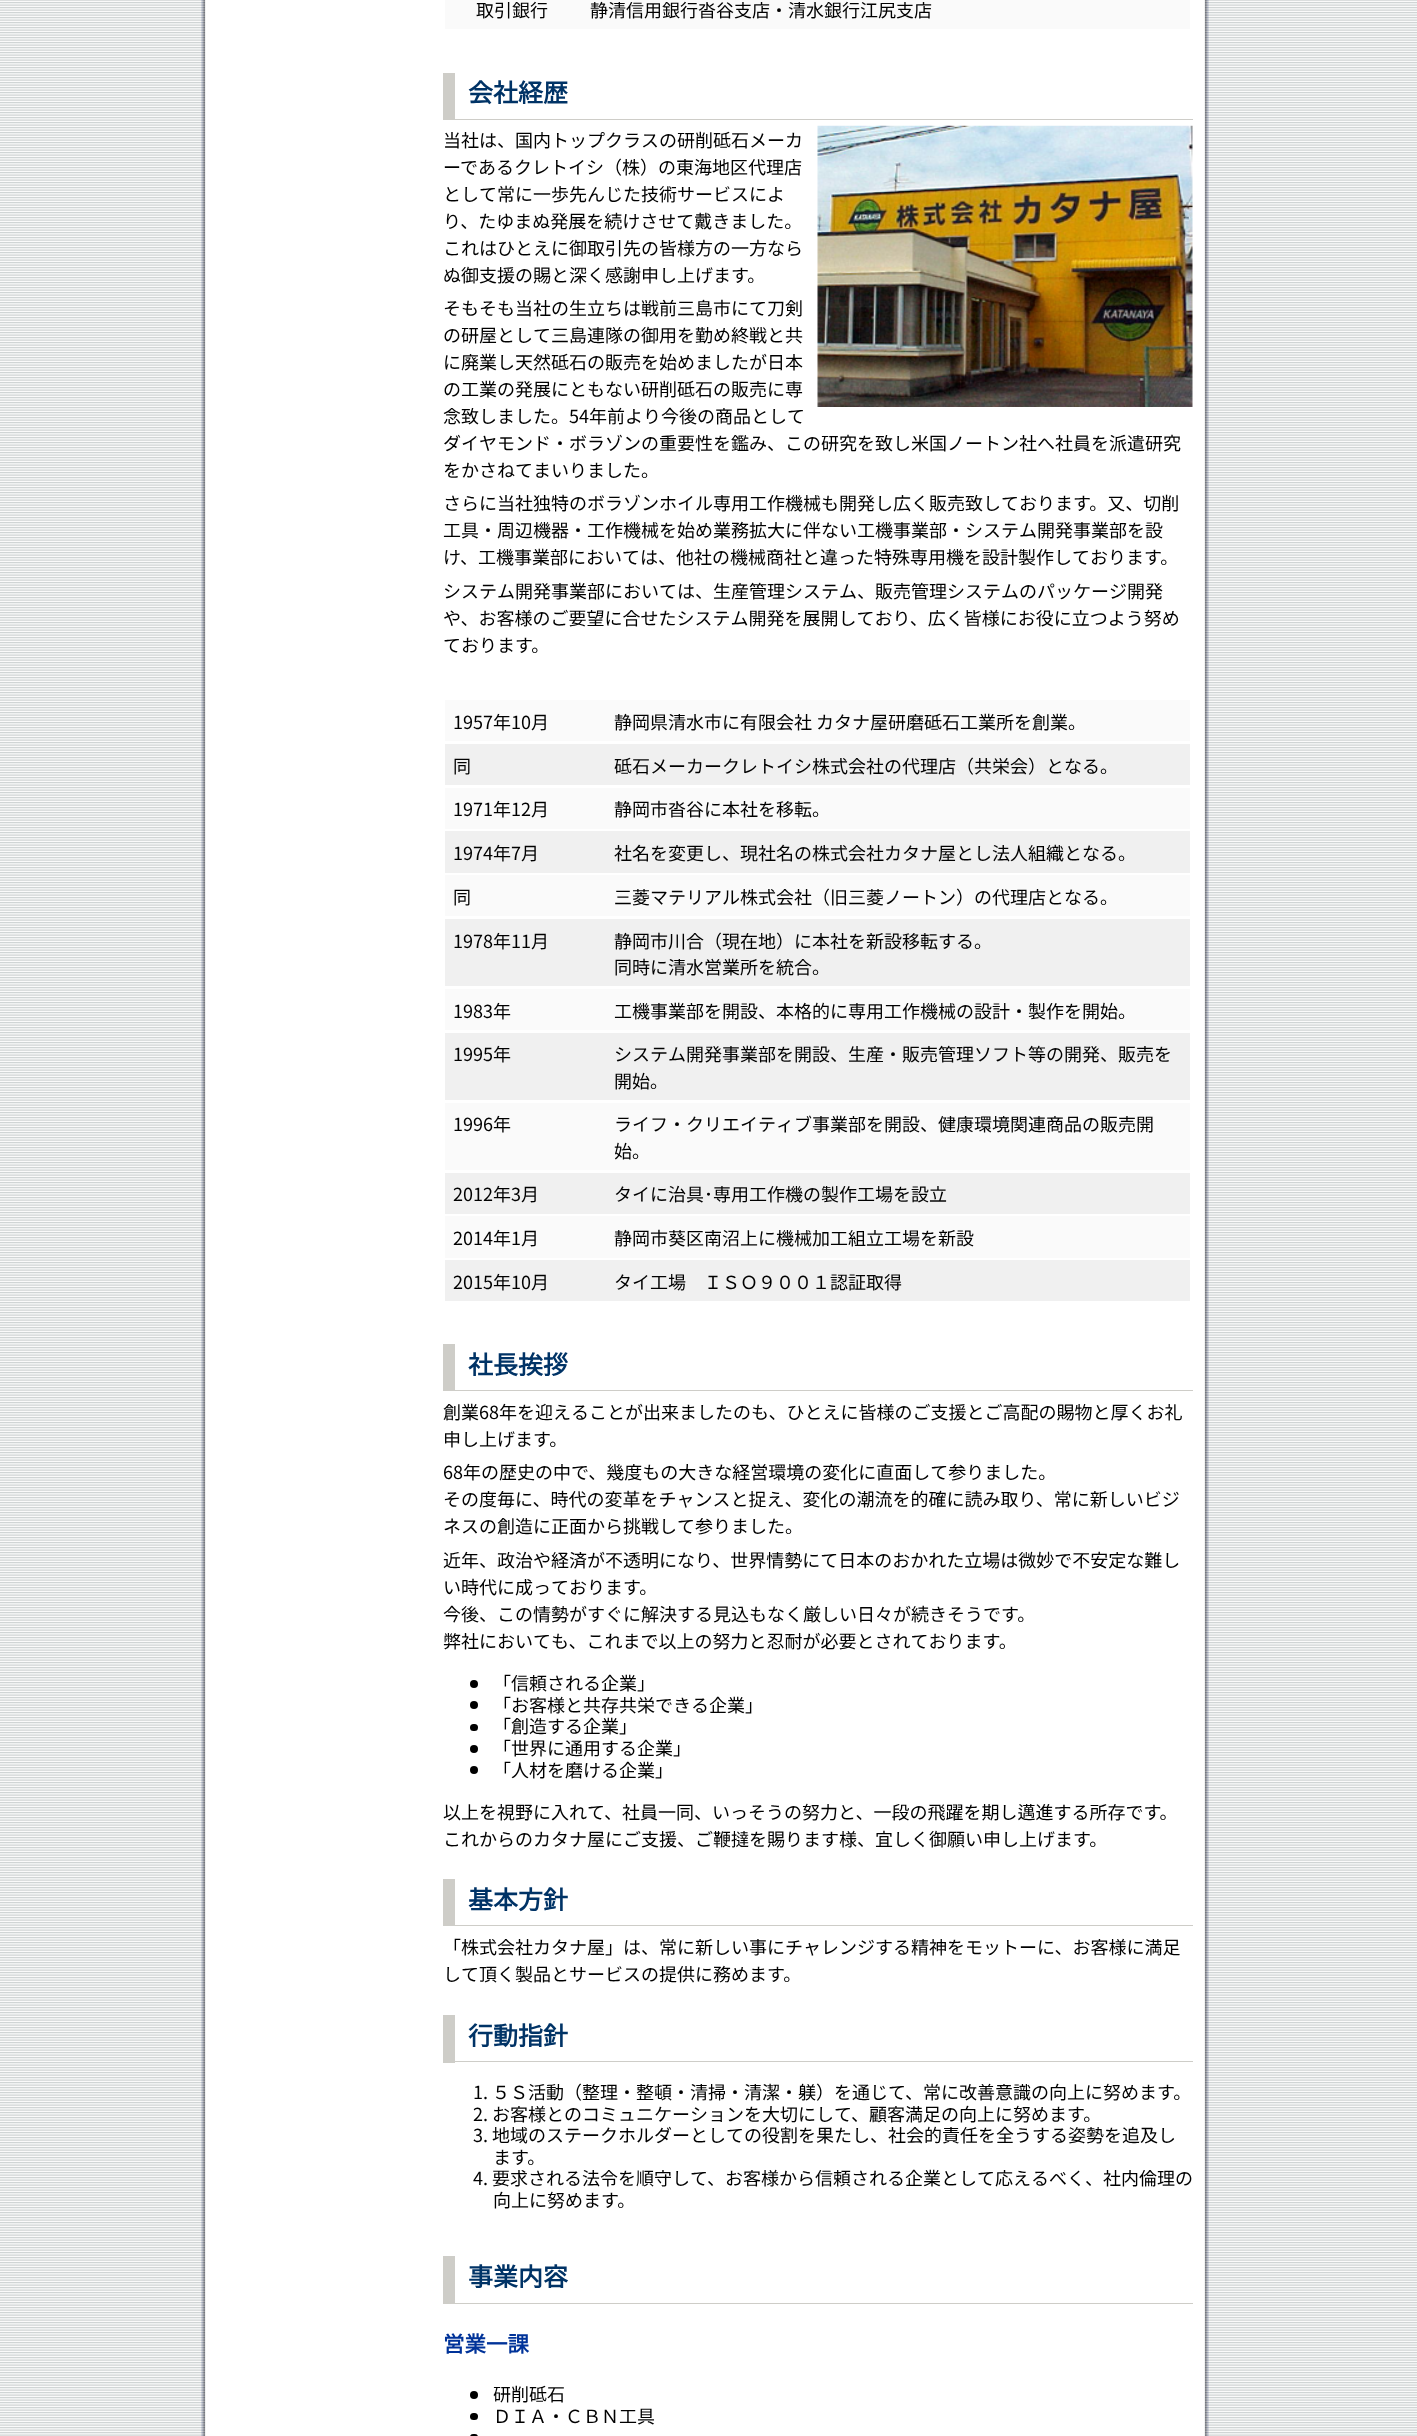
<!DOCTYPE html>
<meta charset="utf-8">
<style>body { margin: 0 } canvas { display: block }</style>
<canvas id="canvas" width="1417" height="2436"></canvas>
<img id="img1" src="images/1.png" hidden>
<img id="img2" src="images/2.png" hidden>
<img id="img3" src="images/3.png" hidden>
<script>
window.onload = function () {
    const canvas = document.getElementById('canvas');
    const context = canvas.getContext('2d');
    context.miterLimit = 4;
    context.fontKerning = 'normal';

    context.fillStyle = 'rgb(255, 255, 255)';
    context.fillRect(0, 0, 1417, 2436);
    context.drawImage(document.getElementById('img1'), 0, 0, 1417, 2436);
    context.drawImage(document.getElementById('img2'), 201, 0, 1008, 2436);
    context.fillStyle = 'rgb(250, 250, 250)';
    context.fillRect(445, 0, 745, 29);
    context.fillStyle = 'rgb(206, 205, 200)';
    context.fillRect(455, 119, 738, 1);
    context.fillRect(443, 73, 12, 47);
    context.drawImage(document.getElementById('img3'), 817, 125, 376, 282);
    context.fillStyle = 'rgb(250, 250, 250)';
    context.fillRect(445, 700, 745, 41);
    context.fillStyle = 'rgb(240, 240, 240)';
    context.fillRect(445, 744, 745, 41);
    context.fillStyle = 'rgb(250, 250, 250)';
    context.fillRect(445, 788, 745, 41);
    context.fillStyle = 'rgb(240, 240, 240)';
    context.fillRect(445, 831, 745, 42);
    context.fillStyle = 'rgb(250, 250, 250)';
    context.fillRect(445, 875, 745, 41);
    context.fillStyle = 'rgb(240, 240, 240)';
    context.fillRect(445, 919, 745, 67);
    context.fillStyle = 'rgb(250, 250, 250)';
    context.fillRect(445, 989, 745, 41);
    context.fillStyle = 'rgb(240, 240, 240)';
    context.fillRect(445, 1033, 745, 67);
    context.fillStyle = 'rgb(250, 250, 250)';
    context.fillRect(445, 1103, 745, 67);
    context.fillStyle = 'rgb(240, 240, 240)';
    context.fillRect(445, 1173, 745, 41);
    context.fillStyle = 'rgb(250, 250, 250)';
    context.fillRect(445, 1216, 745, 42);
    context.fillStyle = 'rgb(240, 240, 240)';
    context.fillRect(445, 1260, 745, 41);
    context.fillStyle = 'rgb(206, 205, 200)';
    context.fillRect(455, 1390, 738, 1);
    context.fillRect(443, 1344, 12, 47);
    context.fillStyle = 'rgb(0, 0, 0)';
    context.beginPath();
    context.arc(474, 1684, 4, 0, 2 * Math.PI);
    context.fill();
    context.beginPath();
    context.arc(474, 1705, 4, 0, 2 * Math.PI);
    context.fill();
    context.beginPath();
    context.roundRect(470, 1724, 8, 7, 3.5);
    context.fill();
    context.beginPath();
    context.arc(474, 1749, 4, 0, 2 * Math.PI);
    context.fill();
    context.beginPath();
    context.arc(474, 1770, 4, 0, 2 * Math.PI);
    context.fill();
    context.fillStyle = 'rgb(206, 205, 200)';
    context.fillRect(455, 1925, 738, 1);
    context.fillRect(443, 1879, 12, 47);
    context.fillRect(455, 2061, 738, 1);
    context.fillRect(443, 2015, 12, 48);
    context.fillRect(455, 2303, 738, 1);
    context.fillRect(443, 2256, 12, 48);
    context.fillStyle = 'rgb(0, 0, 0)';
    context.beginPath();
    context.arc(474, 2395, 4, 0, 2 * Math.PI);
    context.fill();
    context.beginPath();
    context.roundRect(470, 2413, 8, 7, 3.5);
    context.fill();
    context.beginPath();
    context.roundRect(470, 2434, 8, 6, 3.5);
    context.fill();
    context.font = '100 18px Noto Sans JP';
    context.fillText('取引銀行', 476, 17);
    context.fillText('静清信用銀行沓谷支店・清水銀行江尻支店', 590, 17);
    context.font = 'bold 25px Noto Sans JP';
    context.fillStyle = 'rgb(0, 51, 102)';
    context.fillText('会社経歴', 468, 102);
    context.font = '100 18px Noto Sans JP';
    context.fillStyle = 'rgb(0, 0, 0)';
    context.fillText('当社は、国内トップクラスの研削砥石メーカ', 443, 147);
    context.fillText('ーであるクレトイシ（株）の東海地区代理店', 443, 174);
    context.fillText('として常に一歩先んじた技術サービスによ', 443, 201);
    context.fillText('り、たゆまぬ発展を続けさせて戴きました。', 443, 228);
    context.fillText('これはひとえに御取引先の皆様方の一方なら', 443, 255);
    context.fillText('ぬ御支援の賜と深く感謝申し上げます。', 443, 282);
    context.fillText('そもそも当社の生立ちは戦前三島市にて刀剣', 443, 315);
    context.fillText('の研屋として三島連隊の御用を勤め終戦と共', 443, 342);
    context.fillText('に廃業し天然砥石の販売を始めましたが日本', 443, 369);
    context.fillText('の工業の発展にともない研削砥石の販売に専', 443, 396);
    context.fillText('念致しました。54年前より今後の商品として', 443, 423);
    context.fillText('ダイヤモンド・ボラゾンの重要性を鑑み、この研究を致し米国ノートン社へ社員を派遣研究', 443, 450);
    context.fillText('をかさねてまいりました。', 443, 477);
    context.fillText('さらに当社独特のボラゾンホイル専用工作機械も開発し広く販売致しております。又、切削', 443, 510);
    context.fillText('工具・周辺機器・工作機械を始め業務拡大に伴ない工機事業部・システム開発事業部を設', 443, 537);
    context.fillText('け、工機事業部においては、他社の機械商社と違った特殊専用機を設計製作しております。', 443, 564);
    context.fillText('システム開発事業部においては、生産管理システム、販売管理システムのパッケージ開発', 443, 598);
    context.fillText('や、お客様のご要望に合せたシステム開発を展開しており、広く皆様にお役に立つよう努め', 443, 625);
    context.fillText('ております。', 443, 652);
    context.fillText('1957年10月', 453, 729);
    context.fillText('静岡県清水市に有限会社 カタナ屋研磨砥石工業所を創業。', 614, 729);
    context.fillText('同', 453, 773);
    context.fillText('砥石メーカークレトイシ株式会社の代理店（共栄会）となる。', 614, 773);
    context.fillText('1971年12月', 453, 816);
    context.fillText('静岡市沓谷に本社を移転。', 614, 816);
    context.fillText('1974年7月', 453, 860);
    context.fillText('社名を変更し、現社名の株式会社カタナ屋とし法人組織となる。', 614, 860);
    context.fillText('同', 453, 904);
    context.fillText('三菱マテリアル株式会社（旧三菱ノートン）の代理店となる。', 614, 904);
    context.fillText('1978年11月', 453, 948);
    context.fillText('静岡市川合（現在地）に本社を新設移転する。', 614, 948);
    context.fillText('同時に清水営業所を統合。', 614, 974);
    context.fillText('1983年', 453, 1018);
    context.fillText('工機事業部を開設、本格的に専用工作機械の設計・製作を開始。', 614, 1018);
    context.fillText('1995年', 453, 1061);
    context.fillText('システム開発事業部を開設、生産・販売管理ソフト等の開発、販売を', 614, 1061);
    context.fillText('開始。', 614, 1088);
    context.fillText('1996年', 453, 1131);
    context.fillText('ライフ・クリエイティブ事業部を開設、健康環境関連商品の販売開', 614, 1131);
    context.fillText('始。', 614, 1158);
    context.fillText('2012年3月', 453, 1201);
    context.fillText('タイに治具･専用工作機の製作工場を設立', 614, 1201);
    context.fillText('2014年1月', 453, 1245);
    context.fillText('静岡市葵区南沼上に機械加工組立工場を新設', 614, 1245);
    context.fillText('2015年10月', 453, 1289);
    context.fillText('タイ工場　ＩＳＯ９００１認証取得', 614, 1289);
    context.font = 'bold 25px Noto Sans JP';
    context.fillStyle = 'rgb(0, 51, 102)';
    context.fillText('社長挨拶', 468, 1374);
    context.font = '100 18px Noto Sans JP';
    context.fillStyle = 'rgb(0, 0, 0)';
    context.fillText('創業68年を迎えることが出来ましたのも、ひとえに皆様のご支援とご高配の賜物と厚くお礼', 443, 1419);
    context.fillText('申し上げます。', 443, 1446);
    context.fillText('68年の歴史の中で、幾度もの大きな経営環境の変化に直面して参りました。', 443, 1479);
    context.fillText('その度毎に、時代の変革をチャンスと捉え、変化の潮流を的確に読み取り、常に新しいビジ', 443, 1506);
    context.fillText('ネスの創造に正面から挑戦して参りました。', 443, 1533);
    context.fillText('近年、政治や経済が不透明になり、世界情勢にて日本のおかれた立場は微妙で不安定な難し', 443, 1567);
    context.fillText('い時代に成っております。', 443, 1594);
    context.fillText('今後、この情勢がすぐに解決する見込もなく厳しい日々が続きそうです。', 443, 1621);
    context.fillText('弊社においても、これまで以上の努力と忍耐が必要とされております。', 443, 1648);
    context.fillText('「信頼される企業」', 493, 1690);
    context.fillText('「お客様と共存共栄できる企業」', 493, 1712);
    context.fillText('「創造する企業」', 493, 1733);
    context.fillText('「世界に通用する企業」', 493, 1755);
    context.fillText('「人材を磨ける企業」', 493, 1777);
    context.fillText('以上を視野に入れて、社員一同、いっそうの努力と、一段の飛躍を期し邁進する所存です。', 443, 1819);
    context.fillText('これからのカタナ屋にご支援、ご鞭撻を賜ります様、宜しく御願い申し上げます。', 443, 1846);
    context.font = 'bold 25px Noto Sans JP';
    context.fillStyle = 'rgb(0, 51, 102)';
    context.fillText('基本方針', 468, 1909);
    context.font = '100 18px Noto Sans JP';
    context.fillStyle = 'rgb(0, 0, 0)';
    context.fillText('「株式会社カタナ屋」は、常に新しい事にチャレンジする精神をモットーに、お客様に満足', 443, 1954);
    context.fillText('して頂く製品とサービスの提供に務めます。', 443, 1981);
    context.font = 'bold 25px Noto Sans JP';
    context.fillStyle = 'rgb(0, 51, 102)';
    context.fillText('行動指針', 468, 2045);
    context.font = '100 18px Noto Sans JP';
    context.fillStyle = 'rgb(0, 0, 0)';
    context.fillText('1. ５Ｓ活動（整理・整頓・清掃・清潔・躾）を通じて、常に改善意識の向上に努めます。', 473, 2099);
    context.fillText('2. お客様とのコミュニケーションを大切にして、顧客満足の向上に努めます。', 473, 2121);
    context.fillText('3. 地域のステークホルダーとしての役割を果たし、社会的責任を全うする姿勢を追及し', 473, 2142);
    context.fillText('ます。', 493, 2164);
    context.fillText('4. 要求される法令を順守して、お客様から信頼される企業として応えるべく、社内倫理の', 473, 2185);
    context.fillText('向上に努めます。', 493, 2207);
    context.font = 'bold 25px Noto Sans JP';
    context.fillStyle = 'rgb(0, 51, 102)';
    context.fillText('事業内容', 468, 2286);
    context.font = 'bold 21.5px Noto Sans JP';
    context.fillStyle = 'rgb(0, 51, 153)';
    context.fillText('営業一課', 443, 2352);
    context.font = '100 18px Noto Sans JP';
    context.fillStyle = 'rgb(0, 0, 0)';
    context.fillText('研削砥石', 493, 2401);
    context.fillText('ＤＩＡ・ＣＢＮ工具', 493, 2423);
};
</script>
